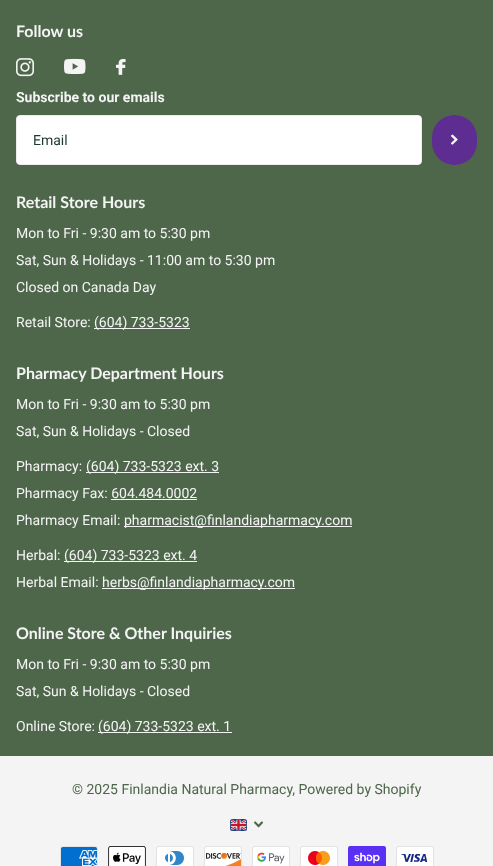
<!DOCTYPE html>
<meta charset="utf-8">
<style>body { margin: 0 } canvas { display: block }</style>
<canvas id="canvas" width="493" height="866"></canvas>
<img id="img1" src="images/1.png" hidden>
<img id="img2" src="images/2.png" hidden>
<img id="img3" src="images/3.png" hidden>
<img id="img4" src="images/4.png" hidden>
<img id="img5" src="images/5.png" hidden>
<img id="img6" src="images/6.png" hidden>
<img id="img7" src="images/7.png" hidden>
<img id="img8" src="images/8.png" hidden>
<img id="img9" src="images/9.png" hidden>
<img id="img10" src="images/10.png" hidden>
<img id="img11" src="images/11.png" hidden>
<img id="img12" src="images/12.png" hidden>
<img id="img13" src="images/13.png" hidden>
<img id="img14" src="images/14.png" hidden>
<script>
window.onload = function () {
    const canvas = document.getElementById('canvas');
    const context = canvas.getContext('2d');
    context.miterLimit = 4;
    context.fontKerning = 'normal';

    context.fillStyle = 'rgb(78, 103, 75)';
    context.fillRect(0, 0, 493, 866);
    context.drawImage(document.getElementById('img1'), 16, 58, 18, 19);
    context.drawImage(document.getElementById('img2'), 64, 58, 22, 17);
    context.drawImage(document.getElementById('img3'), 116, 59, 10, 16);
    context.fillStyle = 'rgb(255, 255, 255)';
    context.beginPath();
    context.roundRect(16.5, 115.5, 405, 49, 3.5);
    context.fill();
    context.strokeStyle = 'rgb(236, 237, 236)';
    context.stroke();
    context.fillStyle = 'rgb(94, 45, 145)';
    context.beginPath();
    context.roundRect(432, 115, 45, 50, 22.5);
    context.fill();
    context.drawImage(document.getElementById('img4'), 451, 134, 7, 11);
    context.fillStyle = 'rgb(244, 244, 244)';
    context.fillRect(94, 328, 96, 1);
    context.fillRect(86, 472, 133, 1);
    context.fillRect(111, 499, 86, 1);
    context.fillRect(124, 526, 228, 1);
    context.fillRect(64, 561, 133, 1);
    context.fillRect(102, 588, 193, 1);
    context.fillRect(98, 732, 134, 1);
    context.fillRect(0, 756, 493, 110);
    context.drawImage(document.getElementById('img5'), 230, 819, 17, 12);
    context.drawImage(document.getElementById('img6'), 254, 821, 9, 7);
    context.drawImage(document.getElementById('img7'), 60, 846, 38, 20);
    context.drawImage(document.getElementById('img8'), 108, 846, 38, 20);
    context.drawImage(document.getElementById('img9'), 156, 846, 38, 20);
    context.drawImage(document.getElementById('img10'), 204, 846, 38, 20);
    context.drawImage(document.getElementById('img11'), 252, 846, 38, 20);
    context.drawImage(document.getElementById('img12'), 300, 846, 38, 20);
    context.drawImage(document.getElementById('img13'), 348, 846, 38, 20);
    context.drawImage(document.getElementById('img14'), 396, 846, 38, 20);
    context.font = 'bold 16px Lato';
    context.fillText('Follow us', 16, 37);
    context.font = 'bold 14px Roboto';
    context.fillText('Subscribe to our emails', 16, 102);
    context.font = '14px Roboto';
    context.fillStyle = 'rgb(28, 56, 48)';
    context.fillText('Email', 33, 145);
    context.font = 'bold 16px Lato';
    context.fillStyle = 'rgb(244, 244, 244)';
    context.fillText('Retail Store Hours', 16, 208);
    context.font = '14px Roboto';
    context.fillText('Mon to Fri - 9:30 am to 5:30 pm', 16, 238);
    context.fillText('Sat, Sun & Holidays - 11:00 am to 5:30 pm', 16, 265);
    context.fillText('Closed on Canada Day', 16, 292);
    context.fillText('Retail Store:', 16, 327);
    context.fillText('(604) 733-5323', 94, 327);
    context.font = 'bold 16px Lato';
    context.fillText('Pharmacy Department Hours', 16, 379);
    context.font = '14px Roboto';
    context.fillText('Mon to Fri - 9:30 am to 5:30 pm', 16, 409);
    context.fillText('Sat, Sun & Holidays - Closed', 16, 436);
    context.fillText('Pharmacy:', 16, 471);
    context.fillText('(604) 733-5323 ext. 3', 86, 471);
    context.fillText('Pharmacy Fax: 604.484.0002', 16, 498);
    context.fillText('Pharmacy Email:', 16, 525);
    context.fillText('pharmacist@finlandiapharmacy.com', 124, 525);
    context.fillText('Herbal:', 16, 560);
    context.fillText('(604) 733-5323 ext. 4', 64, 560);
    context.fillText('Herbal Email:', 16, 587);
    context.fillText('herbs@finlandiapharmacy.com', 102, 587);
    context.font = 'bold 16px Lato';
    context.fillText('Online Store & Other Inquiries', 16, 639);
    context.font = '14px Roboto';
    context.fillText('Mon to Fri - 9:30 am to 5:30 pm', 16, 669);
    context.fillText('Sat, Sun & Holidays - Closed', 16, 696);
    context.fillText('Online Store:', 16, 731);
    context.fillText('(604) 733-5323 ext. 1', 98, 731);
    context.fillStyle = 'rgb(78, 103, 75)';
    context.fillText('© 2025 Finlandia Natural Pharmacy, Powered by Shopify', 72, 794);
};
</script>
